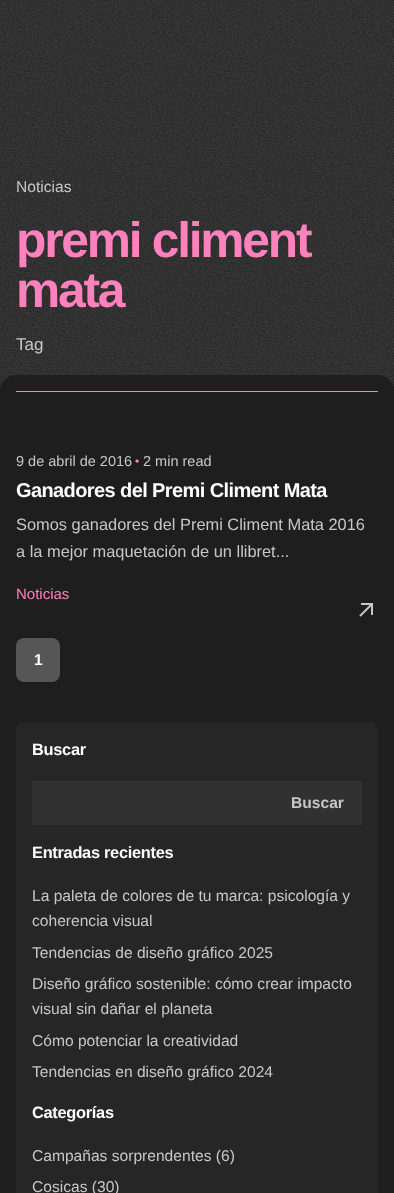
<!DOCTYPE html>
<meta charset="utf-8">
<style>body { margin: 0 } canvas { display: block }</style>
<canvas id="canvas" width="394" height="1193"></canvas>
<img id="img1" src="images/1.png" hidden>
<img id="img2" src="images/2.png" hidden>
<script>
window.onload = function () {
    const canvas = document.getElementById('canvas');
    const context = canvas.getContext('2d');
    context.miterLimit = 4;
    context.fontKerning = 'normal';

    context.fillStyle = 'rgb(30, 30, 30)';
    context.fillRect(0, 0, 394, 1193);
    context.drawImage(document.getElementById('img1'), 0, 0, 394, 391);
    context.beginPath();
    context.roundRect(0, 375, 394, 16, [16, 16, 0, 0]);
    context.fill();
    context.fillStyle = 'rgb(253, 129, 189)';
    context.fillRect(16, 391, 362, 1);
    context.drawImage(document.getElementById('img2'), 359, 603, 14, 14);
    context.fillStyle = 'rgb(86, 86, 86)';
    context.beginPath();
    context.roundRect(16, 638, 44, 44, 8);
    context.fill();
    context.fillStyle = 'rgb(38, 38, 39)';
    context.beginPath();
    context.roundRect(16, 722, 362, 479, 8);
    context.fill();
    context.fillStyle = 'rgb(49, 49, 50)';
    context.fillRect(32, 781, 330, 44);
    context.font = '15.6px Liberation Sans';
    context.fillStyle = 'rgb(199, 199, 199)';
    context.fillText('Noticias', 16, 192);
    context.letterSpacing = '-2.25px';
    context.font = 'bold 49.75px Liberation Sans';
    context.fillStyle = 'rgb(253, 129, 189)';
    context.fillText('premi climent', 16, 257);
    context.fillText('mata', 16, 307);
    context.letterSpacing = '0px';
    context.font = '17px Liberation Sans';
    context.fillStyle = 'rgb(199, 199, 199)';
    context.fillText('Tag', 16, 350);
    context.font = '14.5px Liberation Sans';
    context.fillText('9 de abril de 2016', 16, 466);
    context.font = '12px Liberation Sans';
    context.fillStyle = 'rgb(253, 129, 189)';
    context.fillText('•', 135, 465);
    context.font = '14.5px Liberation Sans';
    context.fillStyle = 'rgb(199, 199, 199)';
    context.fillText('2 min read', 143, 466);
    context.letterSpacing = '-0.6px';
    context.font = 'bold 20px Liberation Sans';
    context.fillStyle = 'rgb(255, 255, 255)';
    context.fillText('Ganadores del Premi Climent Mata', 16, 497);
    context.letterSpacing = '0px';
    context.font = '16.4px Liberation Sans';
    context.fillStyle = 'rgb(199, 199, 199)';
    context.fillText('Somos ganadores del Premi Climent Mata 2016', 16, 530);
    context.fillText('a la mejor maquetación de un llibret...', 16, 557);
    context.font = '15px Liberation Sans';
    context.fillStyle = 'rgb(253, 129, 189)';
    context.fillText('Noticias', 16, 599);
    context.font = 'bold 15.6px Liberation Sans';
    context.fillStyle = 'rgb(255, 255, 255)';
    context.fillText('1', 34, 665);
    context.letterSpacing = '-0.3px';
    context.font = 'bold 16.4px Liberation Sans';
    context.fillText('Buscar', 32, 755);
    context.letterSpacing = '0px';
    context.font = 'bold 15.6px Liberation Sans';
    context.fillStyle = 'rgb(199, 199, 199)';
    context.fillText('Buscar', 291, 808);
    context.letterSpacing = '-0.3px';
    context.font = 'bold 16.4px Liberation Sans';
    context.fillStyle = 'rgb(255, 255, 255)';
    context.fillText('Entradas recientes', 32, 858);
    context.letterSpacing = '0px';
    context.font = '15.6px Liberation Sans';
    context.fillStyle = 'rgb(199, 199, 199)';
    context.fillText('La paleta de colores de tu marca: psicología y', 32, 901);
    context.fillText('coherencia visual', 32, 926);
    context.fillText('Tendencias de diseño gráfico 2025', 32, 958);
    context.fillText('Diseño gráfico sostenible: cómo crear impacto', 32, 989);
    context.fillText('visual sin dañar el planeta', 32, 1014);
    context.fillText('Cómo potenciar la creatividad', 32, 1046);
    context.fillText('Tendencias en diseño gráfico 2024', 32, 1077);
    context.letterSpacing = '-0.3px';
    context.font = 'bold 16.4px Liberation Sans';
    context.fillStyle = 'rgb(255, 255, 255)';
    context.fillText('Categorías', 32, 1118);
    context.letterSpacing = '0px';
    context.font = '15.6px Liberation Sans';
    context.fillStyle = 'rgb(199, 199, 199)';
    context.fillText('Campañas sorprendentes (6)', 32, 1161);
    context.fillText('Cosicas (30)', 32, 1192);
};
</script>
